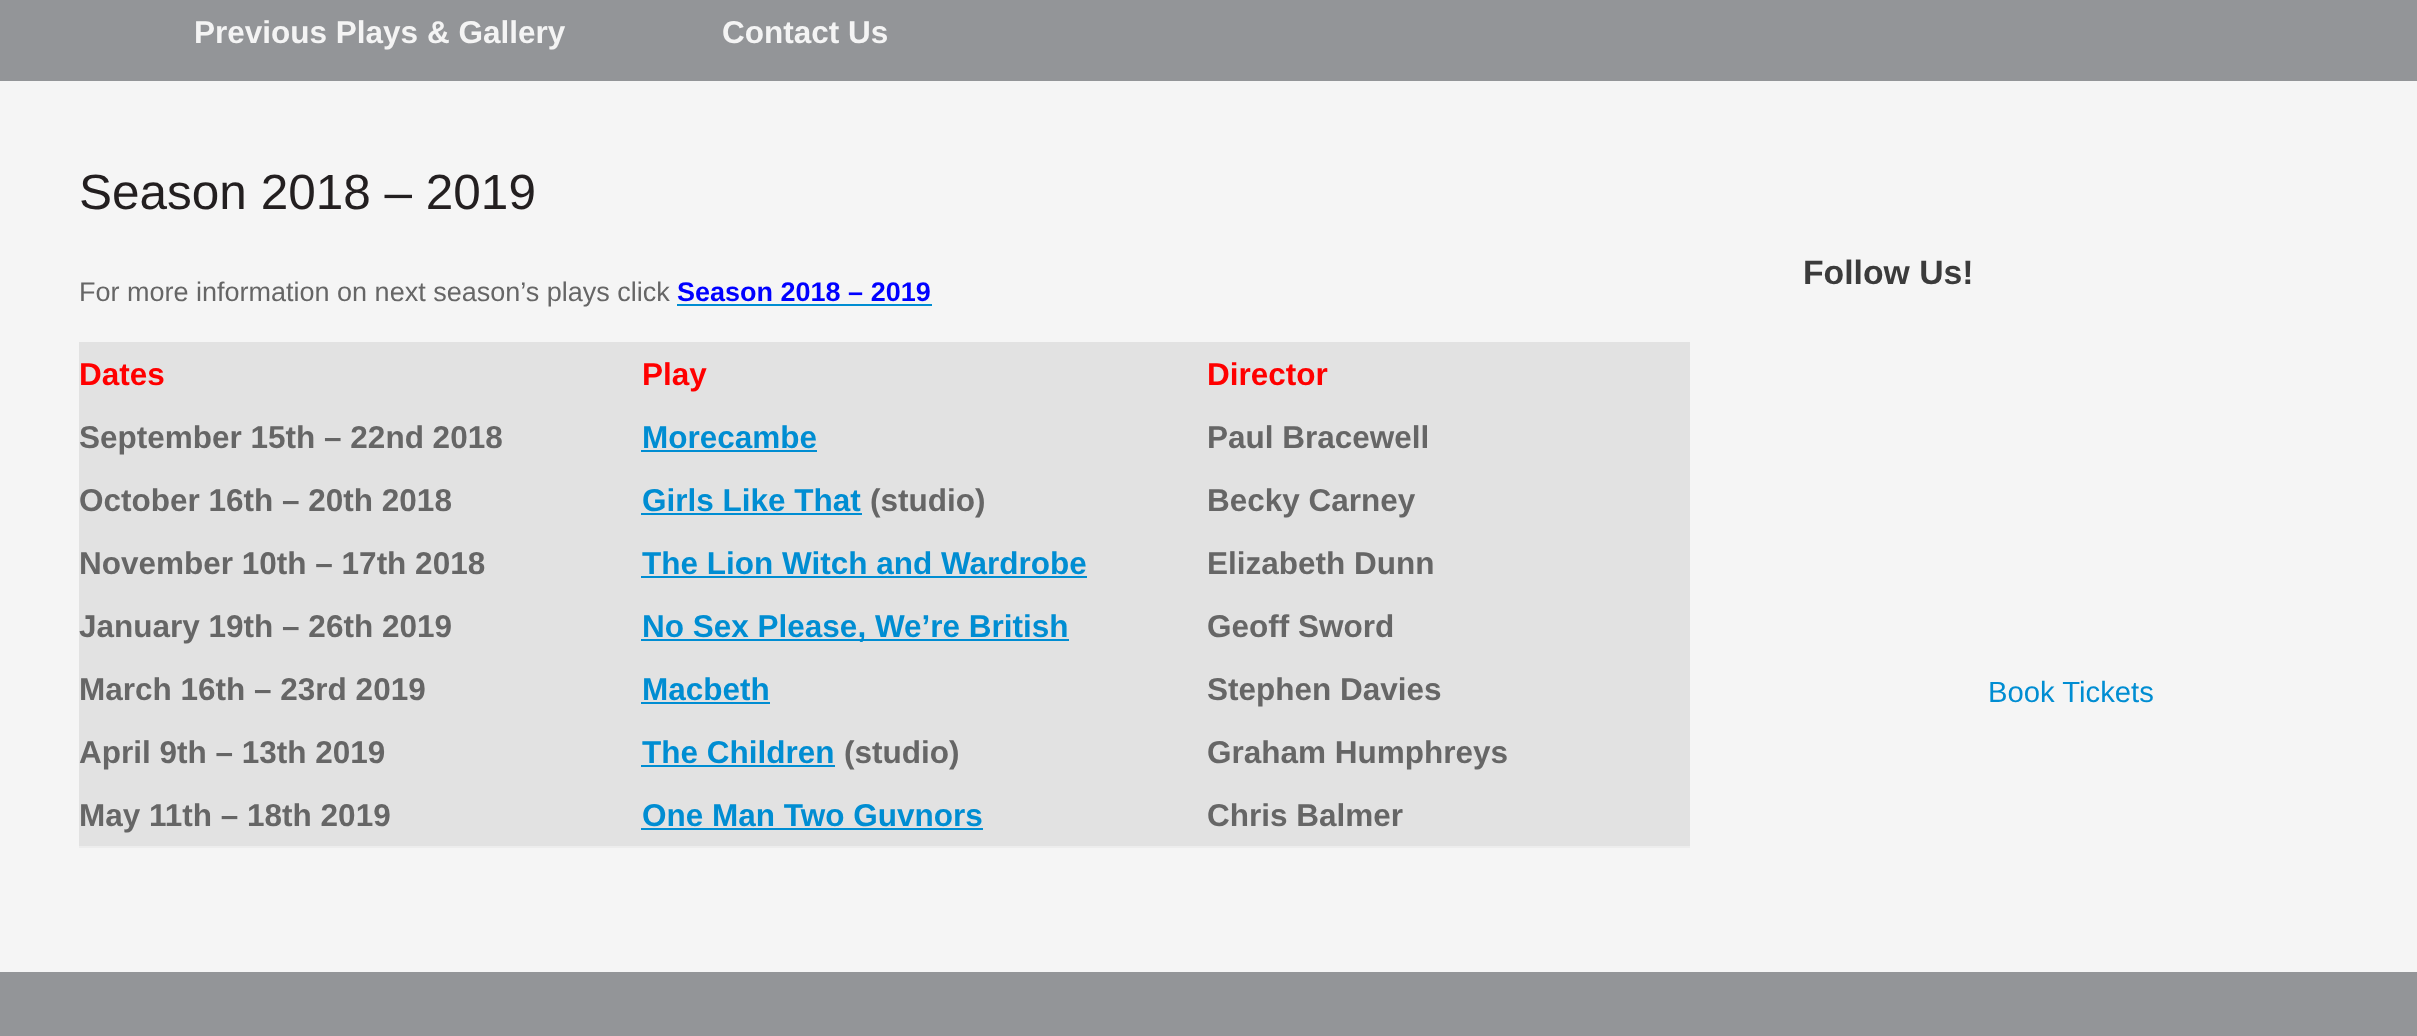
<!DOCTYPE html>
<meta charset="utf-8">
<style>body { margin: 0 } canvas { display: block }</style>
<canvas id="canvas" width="2417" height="1036"></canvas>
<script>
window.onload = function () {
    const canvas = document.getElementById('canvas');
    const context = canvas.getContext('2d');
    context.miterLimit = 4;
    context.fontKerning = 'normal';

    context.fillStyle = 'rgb(147, 149, 152)';
    context.fillRect(0, 0, 2417, 1036);
    context.fillStyle = 'rgb(245, 245, 245)';
    context.fillRect(0, 81, 2417, 891);
    context.fillStyle = 'rgb(0, 141, 210)';
    context.fillRect(677, 304, 255, 2);
    context.fillStyle = 'rgb(226, 226, 226)';
    context.fillRect(79, 342, 1611, 504);
    context.fillStyle = 'rgb(237, 237, 237)';
    context.fillRect(79, 846, 1611, 2);
    context.fillStyle = 'rgb(0, 141, 210)';
    context.fillRect(641, 450, 176, 2);
    context.fillRect(641, 513, 221, 2);
    context.fillRect(641, 576, 446, 2);
    context.fillRect(641, 639, 428, 2);
    context.fillRect(641, 702, 129, 2);
    context.fillRect(641, 765, 194, 2);
    context.fillRect(641, 828, 342, 2);
    context.font = 'bold 31.5px Liberation Sans';
    context.fillStyle = 'rgb(244, 244, 244)';
    context.fillText('Previous Plays & Gallery', 194, 43);
    context.fillText('Contact Us', 722, 43);
    context.font = '49.5px Liberation Sans';
    context.fillStyle = 'rgb(35, 31, 32)';
    context.fillText('Season 2018 – 2019', 79, 209);
    context.font = '27px Liberation Sans';
    context.fillStyle = 'rgb(102, 102, 102)';
    context.fillText('For more information on next season’s plays click', 79, 301);
    context.font = 'bold 27px Liberation Sans';
    context.fillStyle = 'rgb(0, 0, 255)';
    context.fillText('Season 2018 – 2019', 677, 301);
    context.font = 'bold 31.5px Liberation Sans';
    context.fillStyle = 'rgb(255, 0, 0)';
    context.fillText('Dates', 79, 385);
    context.fillText('Play', 642, 385);
    context.fillText('Director', 1207, 385);
    context.fillStyle = 'rgb(102, 102, 102)';
    context.fillText('September 15th – 22nd 2018', 79, 448);
    context.fillStyle = 'rgb(0, 141, 210)';
    context.fillText('Morecambe', 642, 448);
    context.fillStyle = 'rgb(102, 102, 102)';
    context.fillText('Paul Bracewell', 1207, 448);
    context.fillText('October 16th – 20th 2018', 79, 511);
    context.fillStyle = 'rgb(0, 141, 210)';
    context.fillText('Girls Like That', 642, 511);
    context.fillStyle = 'rgb(102, 102, 102)';
    context.fillText('(studio)', 870, 511);
    context.fillText('Becky Carney', 1207, 511);
    context.fillText('November 10th – 17th 2018', 79, 574);
    context.fillStyle = 'rgb(0, 141, 210)';
    context.fillText('The Lion Witch and Wardrobe', 642, 574);
    context.fillStyle = 'rgb(102, 102, 102)';
    context.fillText('Elizabeth Dunn', 1207, 574);
    context.fillText('January 19th – 26th 2019', 79, 637);
    context.fillStyle = 'rgb(0, 141, 210)';
    context.fillText('No Sex Please, We’re British', 642, 637);
    context.fillStyle = 'rgb(102, 102, 102)';
    context.fillText('Geoff Sword', 1207, 637);
    context.fillText('March 16th – 23rd 2019', 79, 700);
    context.fillStyle = 'rgb(0, 141, 210)';
    context.fillText('Macbeth', 642, 700);
    context.fillStyle = 'rgb(102, 102, 102)';
    context.fillText('Stephen Davies', 1207, 700);
    context.fillText('April 9th – 13th 2019', 79, 763);
    context.fillStyle = 'rgb(0, 141, 210)';
    context.fillText('The Children', 642, 763);
    context.fillStyle = 'rgb(102, 102, 102)';
    context.fillText('(studio)', 844, 763);
    context.fillText('Graham Humphreys', 1207, 763);
    context.fillText('May 11th – 18th 2019', 79, 826);
    context.fillStyle = 'rgb(0, 141, 210)';
    context.fillText('One Man Two Guvnors', 642, 826);
    context.fillStyle = 'rgb(102, 102, 102)';
    context.fillText('Chris Balmer', 1207, 826);
    context.font = 'bold 33.75px Liberation Sans';
    context.fillStyle = 'rgb(59, 59, 59)';
    context.fillText('Follow Us!', 1803, 284);
    context.font = '29.25px Liberation Sans';
    context.fillStyle = 'rgb(0, 141, 210)';
    context.fillText('Book Tickets', 1988, 702);
};
</script>
